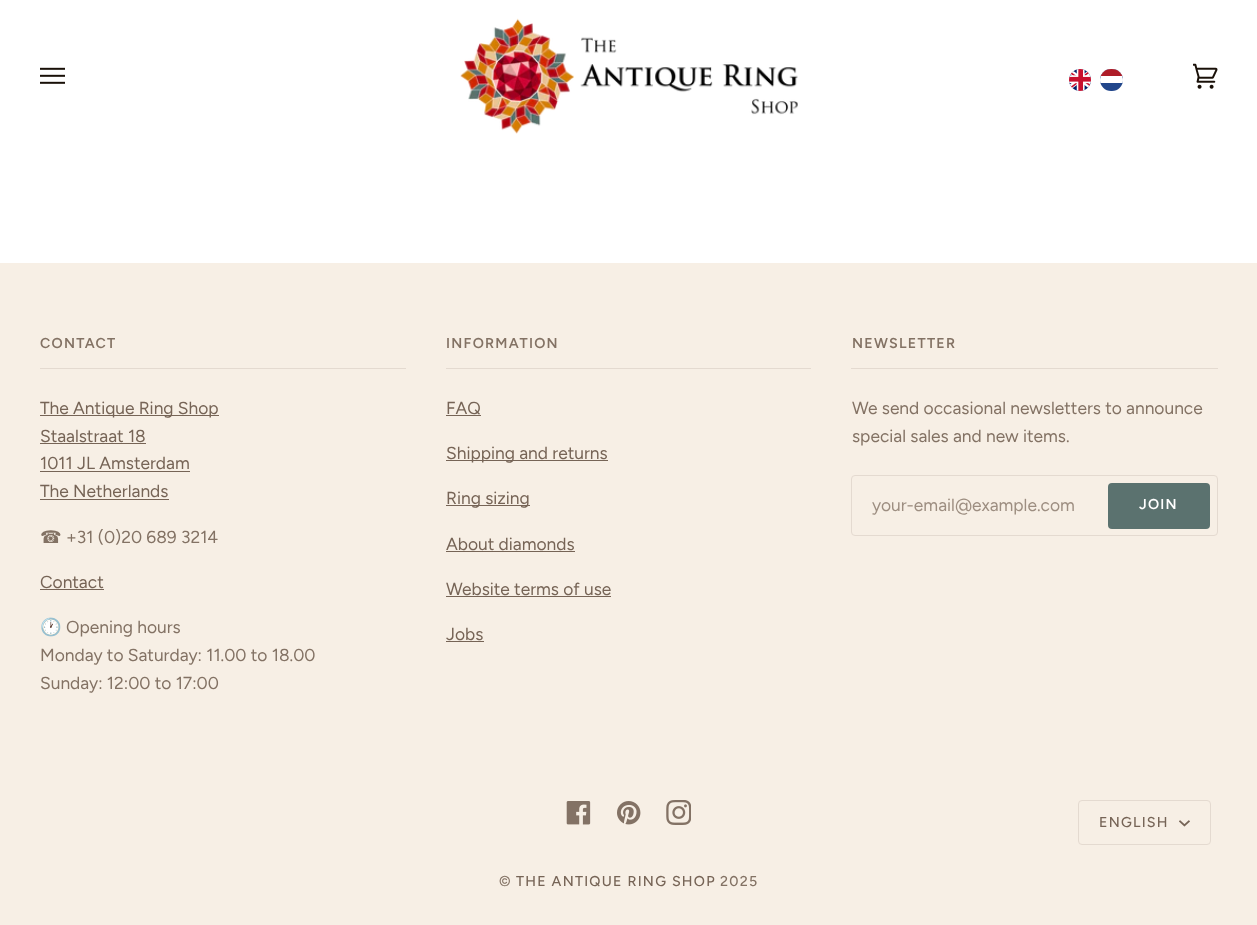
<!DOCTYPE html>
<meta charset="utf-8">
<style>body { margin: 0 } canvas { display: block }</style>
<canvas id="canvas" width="1257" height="925"></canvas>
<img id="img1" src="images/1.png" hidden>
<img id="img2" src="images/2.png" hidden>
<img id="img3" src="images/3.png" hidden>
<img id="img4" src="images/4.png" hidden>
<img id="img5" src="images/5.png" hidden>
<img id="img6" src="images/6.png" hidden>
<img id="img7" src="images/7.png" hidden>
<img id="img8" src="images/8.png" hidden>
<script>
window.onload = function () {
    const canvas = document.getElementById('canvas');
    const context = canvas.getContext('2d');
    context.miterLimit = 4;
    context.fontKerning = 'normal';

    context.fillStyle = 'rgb(255, 255, 255)';
    context.fillRect(0, 0, 1257, 925);
    context.drawImage(document.getElementById('img1'), 40, 67, 25, 17);
    context.drawImage(document.getElementById('img2'), 460, 18, 338, 116);
    context.drawImage(document.getElementById('img3'), 1069, 69, 22, 22);
    context.fillStyle = 'rgb(33, 70, 139)';
    context.beginPath();
    context.roundRect(1100, 69, 23, 22, 11);
    context.fill();
    context.save();
    context.beginPath();
    context.roundRect(1100, 69, 23, 22, 11);
    context.clip();
    context.fillStyle = 'rgb(255, 255, 255)';
    context.beginPath();
    context.roundRect(1100, 69, 23, 14, [11, 11, 0, 0]);
    context.fill();
    context.fillStyle = 'rgb(174, 28, 40)';
    context.fillRect(1100, 69, 23, 7);
    context.restore();
    context.drawImage(document.getElementById('img4'), 1193, 63, 25, 26);
    context.fillStyle = 'rgb(247, 239, 229)';
    context.fillRect(0, 263, 1257, 662);
    context.fillStyle = 'rgb(228, 218, 208)';
    context.fillRect(40, 368, 366, 1);
    context.fillStyle = 'rgb(118, 100, 86)';
    context.fillRect(40, 415, 179, 1);
    context.fillRect(40, 443, 106, 1);
    context.fillRect(40, 471, 150, 1);
    context.fillRect(40, 499, 129, 1);
    context.fillRect(40, 589, 64, 1);
    context.fillStyle = 'rgb(228, 218, 208)';
    context.fillRect(446, 368, 365, 1);
    context.fillStyle = 'rgb(118, 100, 86)';
    context.fillRect(446, 415, 35, 1);
    context.fillRect(446, 460, 162, 1);
    context.fillRect(446, 505, 84, 1);
    context.fillRect(446, 551, 129, 1);
    context.fillRect(446, 596, 165, 1);
    context.fillRect(446, 641, 38, 1);
    context.fillStyle = 'rgb(228, 218, 208)';
    context.fillRect(851, 368, 367, 1);
    context.beginPath();
    context.roundRect(851.5, 475.5, 366, 60, 3.5);
    context.strokeStyle = 'rgb(228, 218, 208)';
    context.stroke();
    context.fillStyle = 'rgb(91, 114, 111)';
    context.beginPath();
    context.roundRect(1108, 483, 102, 46, 4);
    context.fill();
    context.drawImage(document.getElementById('img5'), 566, 801, 25, 24);
    context.drawImage(document.getElementById('img6'), 617, 801, 24, 24);
    context.drawImage(document.getElementById('img7'), 666, 800, 25, 25);
    context.beginPath();
    context.roundRect(1078.5, 800.5, 132, 44, 3.5);
    context.stroke();
    context.drawImage(document.getElementById('img8'), 1179, 820, 11, 7);
    context.letterSpacing = '1.25px';
    context.font = '600 14.25px Figtree';
    context.fillStyle = 'rgb(131, 114, 100)';
    context.fillText('CONTACT', 40, 348);
    context.letterSpacing = '0px';
    context.font = '17.4px Figtree';
    context.fillStyle = 'rgb(118, 100, 86)';
    context.fillText('The Antique Ring Shop', 40, 414);
    context.fillText('Staalstraat 18', 40, 442);
    context.fillText('1011 JL Amsterdam', 40, 469);
    context.fillText('The Netherlands', 40, 497);
    context.font = '17.4px DejaVu Sans';
    context.fillStyle = 'rgb(131, 114, 100)';
    context.fillText('☎', 40, 543);
    context.font = '17.4px Figtree';
    context.fillText('+31 (0)20 689 3214', 66, 543);
    context.fillStyle = 'rgb(118, 100, 86)';
    context.fillText('Contact', 40, 588);
    context.font = '17.4px Noto Color Emoji';
    context.fillStyle = 'rgb(131, 114, 100)';
    context.fillText('🕐', 40, 633);
    context.font = '17.4px Figtree';
    context.fillText('Opening hours', 66, 633);
    context.fillText('Monday to Saturday: 11.00 to 18.00', 40, 661);
    context.fillText('Sunday: 12:00 to 17:00', 40, 689);
    context.letterSpacing = '1.25px';
    context.font = '600 14.25px Figtree';
    context.fillText('INFORMATION', 446, 348);
    context.letterSpacing = '0px';
    context.font = '17.4px Figtree';
    context.fillStyle = 'rgb(118, 100, 86)';
    context.fillText('FAQ', 446, 414);
    context.fillText('Shipping and returns', 446, 459);
    context.fillText('Ring sizing', 446, 504);
    context.fillText('About diamonds', 446, 550);
    context.fillText('Website terms of use', 446, 595);
    context.fillText('Jobs', 446, 640);
    context.letterSpacing = '1.25px';
    context.font = '600 14.25px Figtree';
    context.fillStyle = 'rgb(131, 114, 100)';
    context.fillText('NEWSLETTER', 852, 348);
    context.letterSpacing = '0px';
    context.font = '17.4px Figtree';
    context.fillText('We send occasional newsletters to announce', 852, 414);
    context.fillText('special sales and new items.', 852, 442);
    context.fillStyle = 'rgb(157, 142, 129)';
    context.fillText('your-email@example.com', 872, 511);
    context.letterSpacing = '1.25px';
    context.font = '600 14.25px Figtree';
    context.fillStyle = 'rgb(255, 255, 255)';
    context.fillText('JOIN', 1139, 509);
    context.font = '500 14.25px Figtree';
    context.fillStyle = 'rgb(118, 100, 86)';
    context.fillText('ENGLISH', 1099, 827);
    context.fillStyle = 'rgb(131, 114, 100)';
    context.fillText('©', 499, 886);
    context.fillStyle = 'rgb(118, 100, 86)';
    context.fillText('THE ANTIQUE RING SHOP', 516, 886);
    context.fillStyle = 'rgb(131, 114, 100)';
    context.fillText('2025', 720, 886);
};
</script>
